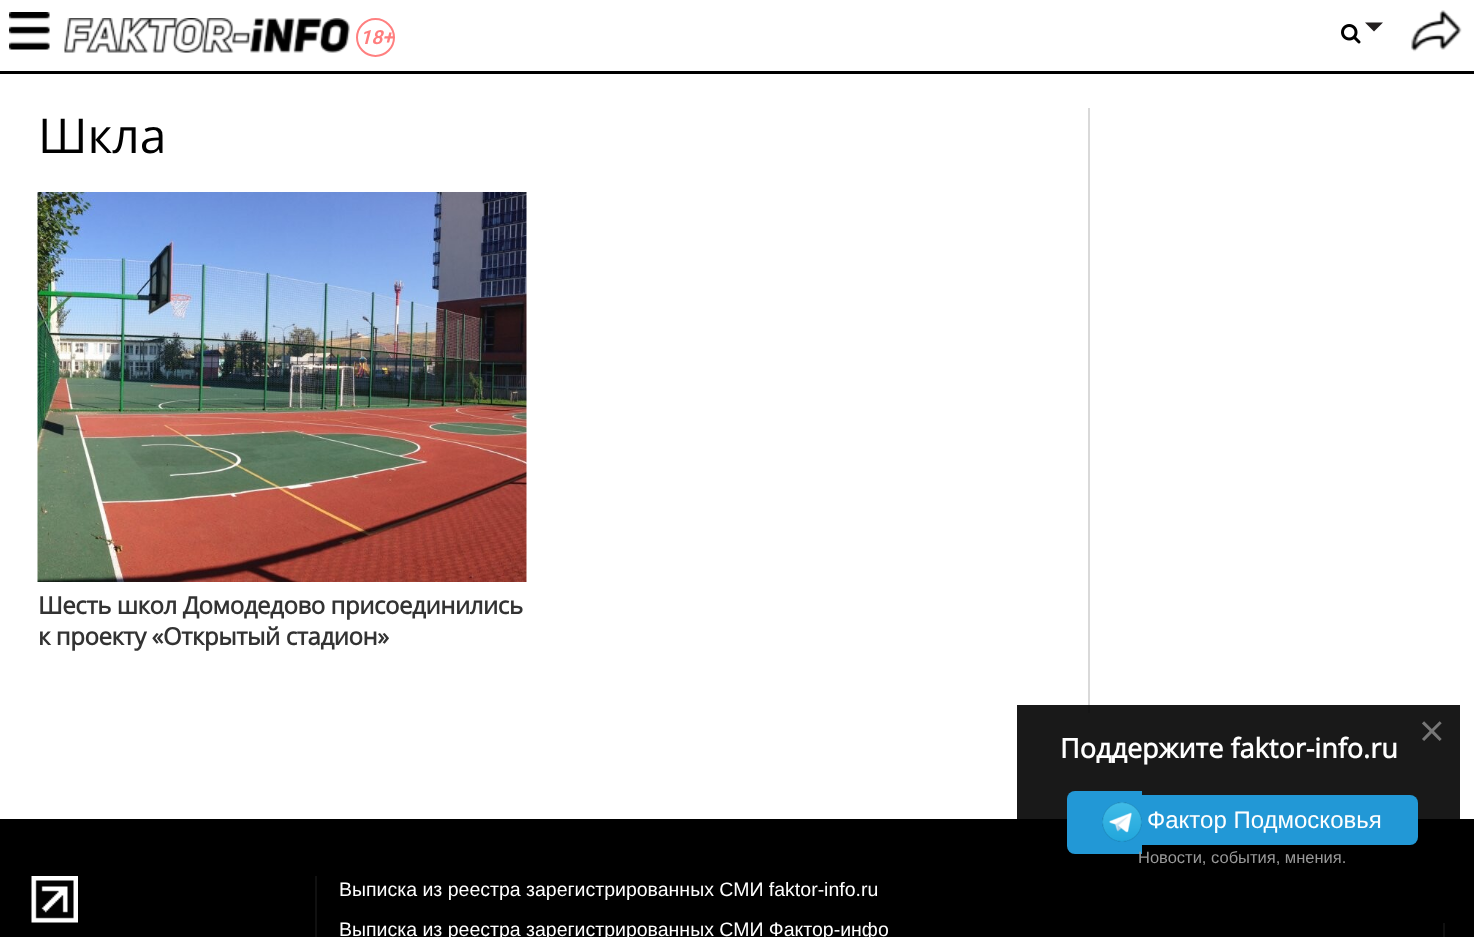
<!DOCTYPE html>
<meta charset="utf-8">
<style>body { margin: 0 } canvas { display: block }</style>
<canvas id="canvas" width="1474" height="937"></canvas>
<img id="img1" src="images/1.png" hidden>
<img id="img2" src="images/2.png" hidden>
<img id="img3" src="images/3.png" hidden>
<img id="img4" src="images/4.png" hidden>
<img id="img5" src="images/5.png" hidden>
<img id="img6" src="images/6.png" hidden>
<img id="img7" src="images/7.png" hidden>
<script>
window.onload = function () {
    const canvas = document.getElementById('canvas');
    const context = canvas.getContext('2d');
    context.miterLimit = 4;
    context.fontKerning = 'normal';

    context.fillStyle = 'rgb(255, 255, 255)';
    context.fillRect(0, 0, 1474, 937);
    context.fillStyle = 'rgb(25, 25, 25)';
    context.fillRect(1017, 705, 443, 114);
    context.fillStyle = 'rgb(0, 0, 0)';
    context.fillRect(0, 71, 1474, 3);
    context.drawImage(document.getElementById('img1'), 9, 12, 41, 38);
    context.drawImage(document.getElementById('img2'), 64, 18, 286, 35);
    context.beginPath();
    context.arc(375.5, 37.5, 18.5, 0, 2 * Math.PI);
    context.strokeStyle = 'rgb(255, 128, 128)';
    context.lineWidth = 2;
    context.stroke();
    context.drawImage(document.getElementById('img3'), 1341, 24, 20, 20);
    context.fillStyle = 'rgb(35, 31, 32)';
    context.beginPath();
    context.moveTo(1365, 22.5);
    context.lineTo(1383, 22.5);
    context.lineTo(1374, 31.5);
    context.closePath();
    context.fill();
    context.drawImage(document.getElementById('img4'), 1411, 10, 51, 42);
    context.fillStyle = 'rgb(217, 217, 217)';
    context.fillRect(1088, 108, 2, 605);
    context.fillStyle = 'rgb(22, 22, 22)';
    context.fillRect(1088, 705, 2, 8);
    context.drawImage(document.getElementById('img5'), 37, 192, 490, 390);
    context.fillStyle = 'rgb(0, 0, 0)';
    context.fillRect(0, 819, 1474, 118);
    context.fillStyle = 'rgb(34, 152, 214)';
    context.beginPath();
    context.roundRect(1067, 791, 75, 63, [8, 0, 0, 8]);
    context.fill();
    context.drawImage(document.getElementById('img6'), 1102, 802, 40, 40);
    context.fillRect(1142, 795, 6, 50);
    context.beginPath();
    context.roundRect(1148, 795, 270, 50, [0, 8, 8, 0]);
    context.fill();
    context.drawImage(document.getElementById('img7'), 31, 876, 47, 47);
    context.fillStyle = 'rgb(16, 16, 16)';
    context.fillRect(1443, 923, 2, 14);
    context.fillRect(315, 876, 2, 61);
    context.font = 'italic 600 19.5px Roboto';
    context.fillStyle = 'rgb(255, 126, 126)';
    context.fillText('18+', 360, 44);
    context.font = '48px Open Sans';
    context.fillStyle = 'rgb(0, 0, 0)';
    context.fillText('Шкла', 38, 153);
    context.letterSpacing = '-0.45px';
    context.font = 'bold 24px Open Sans';
    context.fillStyle = 'rgb(51, 51, 51)';
    context.fillText('Шесть школ Домодедово присоединились', 38, 614);
    context.fillText('к проекту «Открытый стадион»', 38, 645);
    context.letterSpacing = '0px';
    context.font = '45px Open Sans';
    context.fillStyle = 'rgb(118, 118, 118)';
    context.fillText('×', 1419, 747);
    context.font = 'bold 27px Open Sans';
    context.fillStyle = 'rgb(255, 255, 255)';
    context.fillText('Поддержите faktor-info.ru', 1060, 758);
    context.font = '24px Liberation Sans';
    context.fillText('Фактор Подмосковья', 1147, 828);
    context.font = '16.5px Liberation Sans';
    context.fillStyle = 'rgb(153, 153, 153)';
    context.fillText('Новости, события, мнения.', 1138, 863);
    context.font = '19.5px Liberation Sans';
    context.fillStyle = 'rgb(255, 255, 255)';
    context.fillText('Выписка из реестра зарегистрированных СМИ faktor-info.ru', 339, 896);
    context.fillText('Выписка из реестра зарегистрированных СМИ Фактор-инфо', 339, 936);
};
</script>
